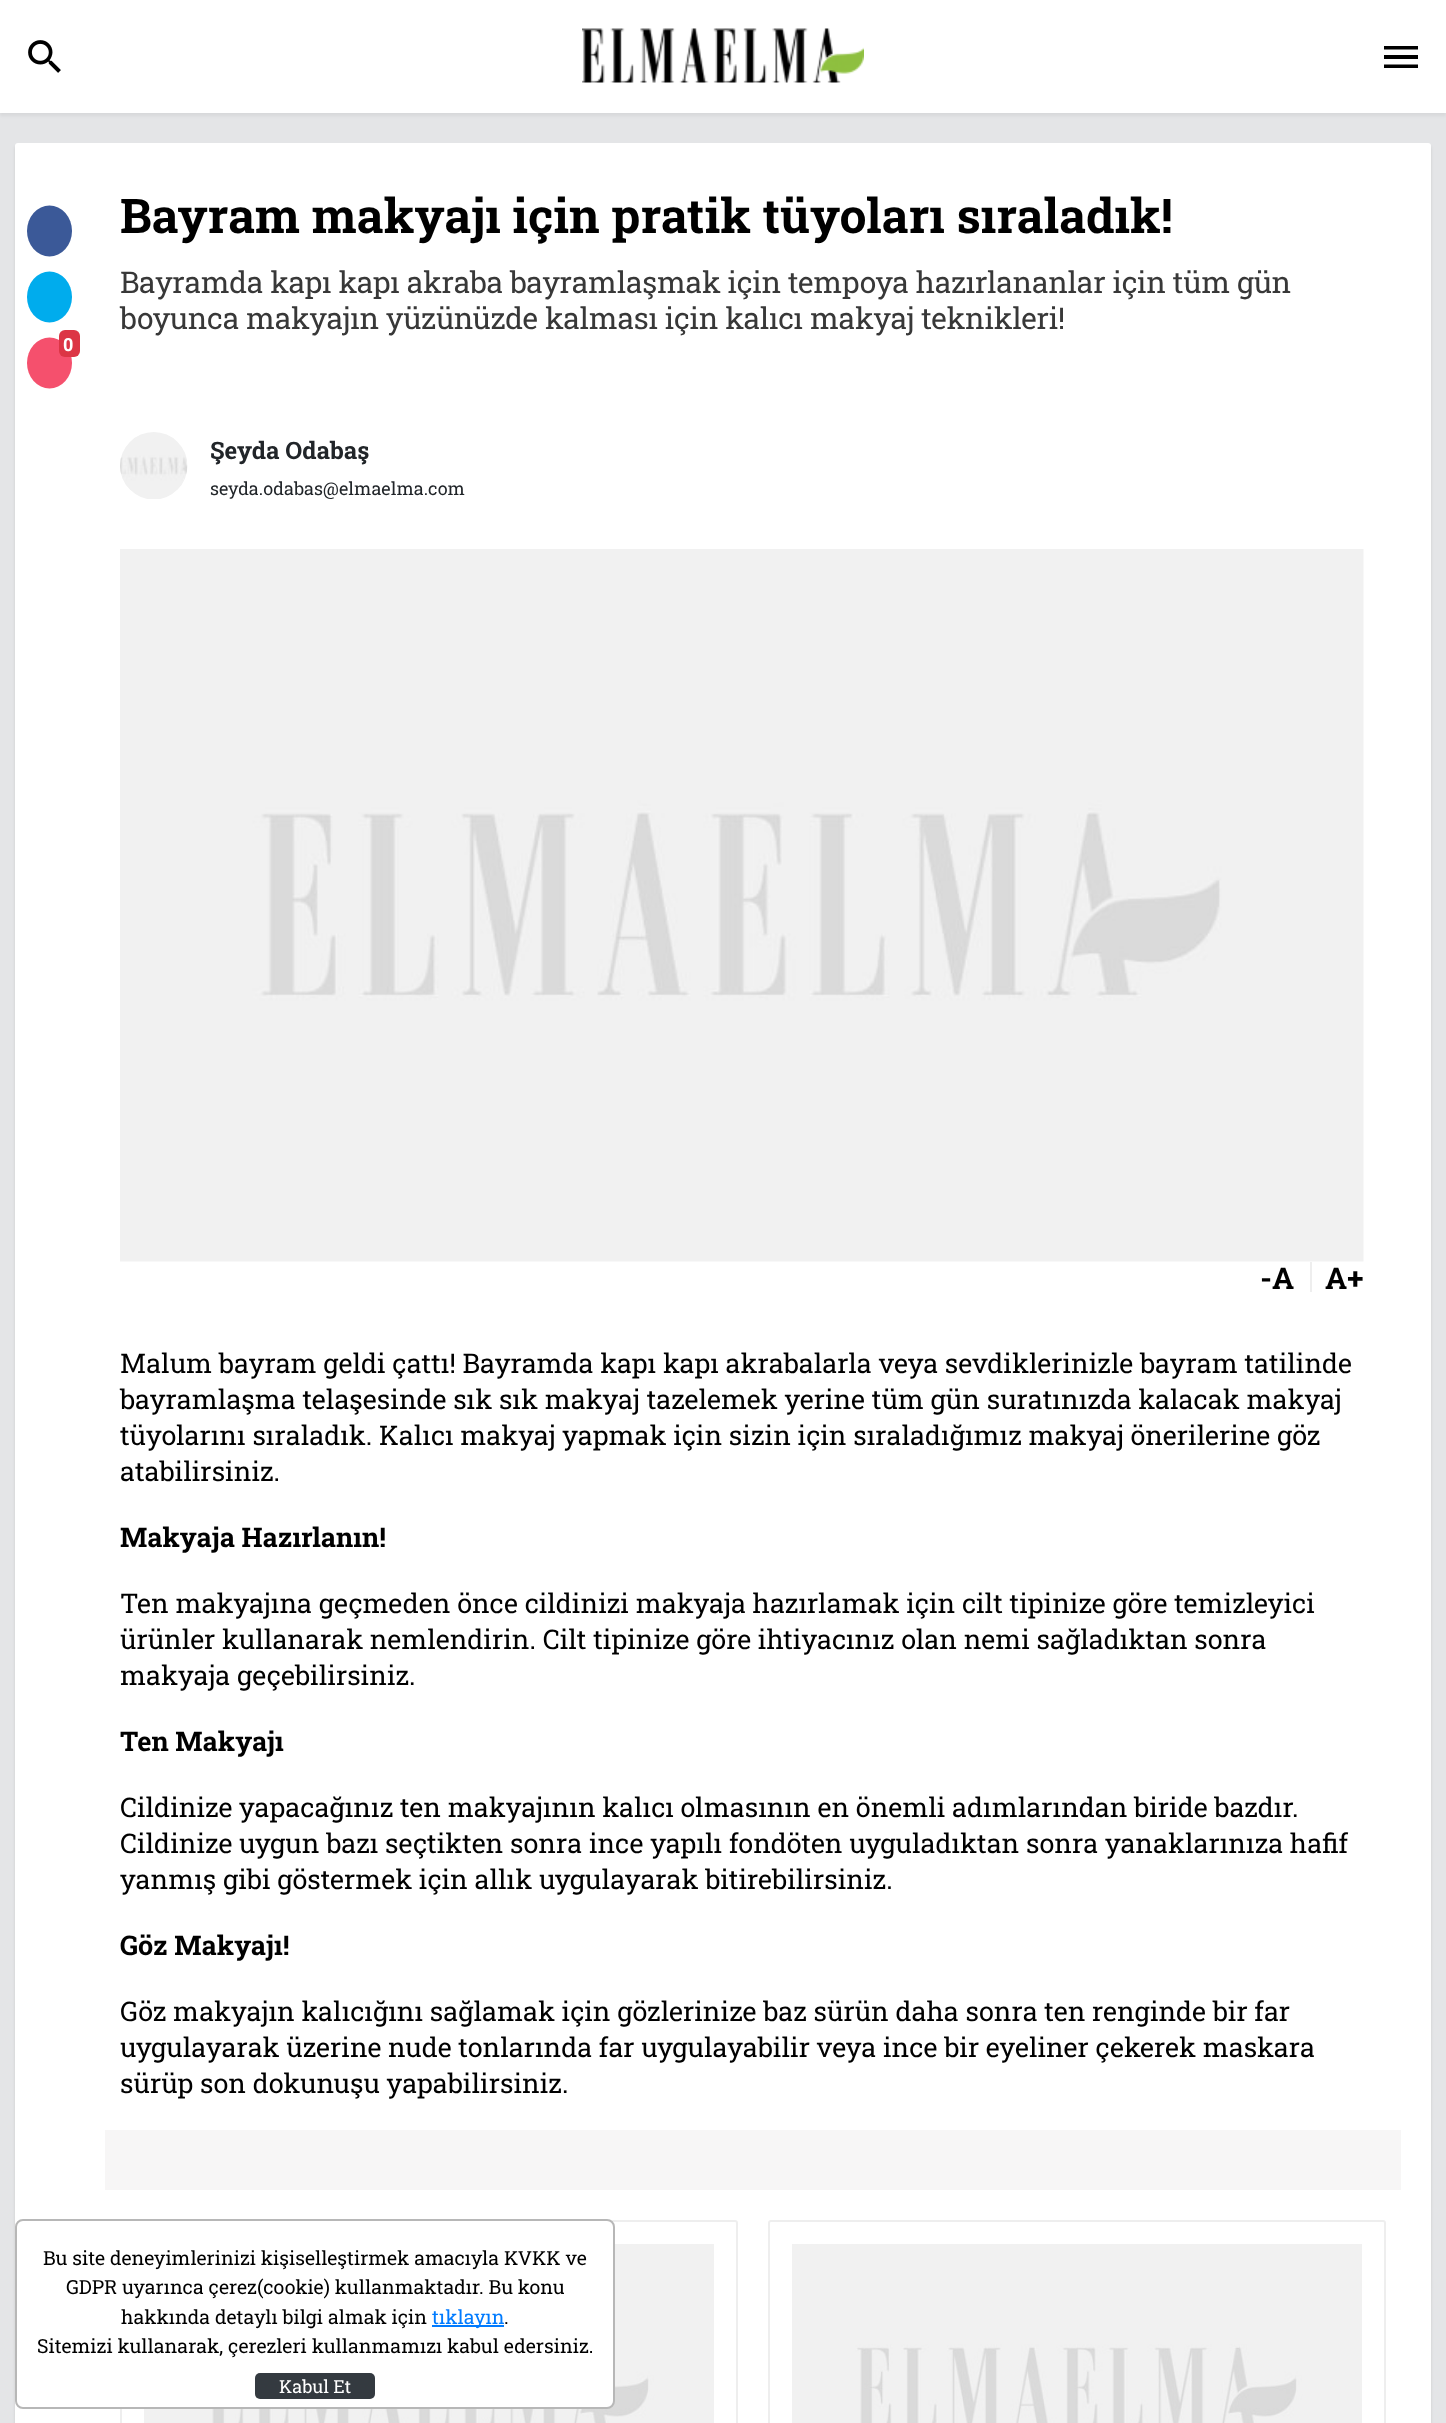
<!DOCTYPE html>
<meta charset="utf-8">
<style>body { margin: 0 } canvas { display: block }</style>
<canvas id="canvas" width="1446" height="2423"></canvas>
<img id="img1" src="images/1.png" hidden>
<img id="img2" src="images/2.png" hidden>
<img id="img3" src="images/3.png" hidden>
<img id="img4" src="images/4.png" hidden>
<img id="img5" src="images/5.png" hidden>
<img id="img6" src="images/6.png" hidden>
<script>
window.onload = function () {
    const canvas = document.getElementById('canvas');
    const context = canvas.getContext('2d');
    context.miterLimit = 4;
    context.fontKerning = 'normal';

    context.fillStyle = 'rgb(228, 229, 231)';
    context.fillRect(0, 0, 1446, 2423);
    context.fillStyle = 'rgba(0, 0, 0, 0.05)';
    context.filter = 'blur(1.5px)';
    context.beginPath();
    context.rect(0, 3, 1446, 113);
    context.fill();
    context.filter = 'none';
    context.fillStyle = 'rgb(255, 255, 255)';
    context.fillRect(0, 0, 1446, 113);
    context.drawImage(document.getElementById('img1'), 28, 40, 33, 33);
    context.drawImage(document.getElementById('img2'), 582, 28, 282, 55);
    context.fillStyle = 'rgb(0, 0, 0)';
    context.beginPath();
    context.moveTo(1384, 46);
    context.lineTo(1418, 46);
    context.lineTo(1418, 49.5);
    context.lineTo(1384, 49.5);
    context.closePath();
    context.moveTo(1384, 59);
    context.lineTo(1384, 55);
    context.lineTo(1418, 55);
    context.lineTo(1418, 59);
    context.closePath();
    context.moveTo(1384, 68);
    context.lineTo(1384, 64.5);
    context.lineTo(1418, 64.5);
    context.lineTo(1418, 68);
    context.closePath();
    context.fill();
    context.fillStyle = 'rgba(0, 0, 0, 0.1)';
    context.filter = 'blur(1.5px)';
    context.beginPath();
    context.roundRect(15, 146, 1416, 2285, 3);
    context.fill();
    context.filter = 'none';
    context.fillStyle = 'rgb(255, 255, 255)';
    context.beginPath();
    context.roundRect(15, 143, 1416, 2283, 3);
    context.fill();
    context.fillStyle = 'rgb(59, 89, 152)';
    context.beginPath();
    context.ellipse(49.5, 231, 22.5, 25.5, 0, 0, 2 * Math.PI);
    context.fill();
    context.fillStyle = 'rgb(0, 172, 237)';
    context.beginPath();
    context.ellipse(49.5, 297, 22.5, 25.5, 0, 0, 2 * Math.PI);
    context.fill();
    context.fillStyle = 'rgb(245, 80, 109)';
    context.beginPath();
    context.ellipse(49.5, 363, 22.5, 25.5, 0, 0, 2 * Math.PI);
    context.fill();
    context.fillStyle = 'rgb(220, 53, 69)';
    context.beginPath();
    context.roundRect(59, 330, 21, 27, 6);
    context.fill();
    context.drawImage(document.getElementById('img3'), 120, 432, 68, 67);
    context.drawImage(document.getElementById('img4'), 120, 549, 1244, 713);
    context.fillStyle = 'rgb(238, 238, 238)';
    context.fillRect(1310, 1262, 2, 30);
    context.fillStyle = 'rgb(247, 246, 246)';
    context.fillRect(105, 2130, 1296, 60);
    context.beginPath();
    context.roundRect(121, 2221, 616, 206, 2);
    context.strokeStyle = 'rgb(238, 238, 238)';
    context.lineWidth = 2;
    context.stroke();
    context.drawImage(document.getElementById('img5'), 144, 2244, 570, 179);
    context.beginPath();
    context.roundRect(769, 2221, 616, 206, 2);
    context.stroke();
    context.drawImage(document.getElementById('img6'), 792, 2244, 570, 179);
    context.fillStyle = 'rgb(255, 255, 255)';
    context.beginPath();
    context.roundRect(16, 2220, 598, 188, 7);
    context.fill();
    context.strokeStyle = 'rgb(183, 183, 183)';
    context.stroke();
    context.fillStyle = 'rgb(0, 123, 255)';
    context.fillRect(432, 2325, 72, 2);
    context.fillStyle = 'rgb(52, 58, 64)';
    context.beginPath();
    context.roundRect(255, 2373, 120, 26, 5);
    context.fill();
    context.font = 'bold 48px Roboto Slab';
    context.fillStyle = 'rgb(0, 0, 0)';
    context.fillText('Bayram makyajı için pratik tüyoları sıraladık!', 120, 233);
    context.letterSpacing = '-0.3px';
    context.font = '30px Roboto Slab';
    context.fillStyle = 'rgb(56, 56, 56)';
    context.fillText('Bayramda kapı kapı akraba bayramlaşmak için tempoya hazırlananlar için tüm gün', 120, 293);
    context.fillText('boyunca makyajın yüzünüzde kalması için kalıcı makyaj teknikleri!', 120, 329);
    context.letterSpacing = '0px';
    context.font = 'bold 18px Roboto Slab';
    context.fillStyle = 'rgb(255, 255, 255)';
    context.fillText('0', 63, 351);
    context.font = 'bold 24px Roboto Slab';
    context.fillStyle = 'rgb(33, 37, 41)';
    context.fillText('Şeyda Odabaş', 210, 459);
    context.font = '18px Roboto Slab';
    context.fillText('seyda.odabas@elmaelma.com', 210, 495);
    context.font = 'bold 30px Roboto Slab';
    context.fillStyle = 'rgb(0, 0, 0)';
    context.fillText('-A', 1260, 1289);
    context.fillText('A+', 1325, 1289);
    context.font = '27px Roboto Slab';
    context.fillText('Malum bayram geldi çattı! Bayramda kapı kapı akrabalarla veya sevdiklerinizle bayram tatilinde', 120, 1373);
    context.fillText('bayramlaşma telaşesinde sık sık makyaj tazelemek yerine tüm gün suratınızda kalacak makyaj', 120, 1409);
    context.fillText('tüyolarını sıraladık. Kalıcı makyaj yapmak için sizin için sıraladığımız makyaj önerilerine göz', 120, 1445);
    context.fillText('atabilirsiniz.', 120, 1481);
    context.font = 'bold 27px Roboto Slab';
    context.fillText('Makyaja Hazırlanın!', 120, 1547);
    context.font = '27px Roboto Slab';
    context.fillText('Ten makyajına geçmeden önce cildinizi makyaja hazırlamak için cilt tipinize göre temizleyici', 120, 1613);
    context.fillText('ürünler kullanarak nemlendirin. Cilt tipinize göre ihtiyacınız olan nemi sağladıktan sonra', 120, 1649);
    context.fillText('makyaja geçebilirsiniz.', 120, 1685);
    context.font = 'bold 27px Roboto Slab';
    context.fillText('Ten Makyajı', 120, 1751);
    context.font = '27px Roboto Slab';
    context.fillText('Cildinize yapacağınız ten makyajının kalıcı olmasının en önemli adımlarından biride bazdır.', 120, 1817);
    context.fillText('Cildinize uygun bazı seçtikten sonra ince yapılı fondöten uyguladıktan sonra yanaklarınıza hafif', 120, 1853);
    context.fillText('yanmış gibi göstermek için allık uygulayarak bitirebilirsiniz.', 120, 1889);
    context.font = 'bold 27px Roboto Slab';
    context.fillText('Göz Makyajı!', 120, 1955);
    context.font = '27px Roboto Slab';
    context.fillText('Göz makyajın kalıcığını sağlamak için gözlerinize baz sürün daha sonra ten renginde bir far', 120, 2021);
    context.fillText('uygulayarak üzerine nude tonlarında far uygulayabilir veya ince bir eyeliner çekerek maskara', 120, 2057);
    context.fillText('sürüp son dokunuşu yapabilirsiniz.', 120, 2093);
    context.font = '19.5px Roboto Slab';
    context.fillText('Bu site deneyimlerinizi kişiselleştirmek amacıyla KVKK ve', 43, 2265);
    context.fillText('GDPR uyarınca çerez(cookie) kullanmaktadır. Bu konu', 66, 2294);
    context.fillText('hakkında detaylı bilgi almak için', 121, 2324);
    context.fillStyle = 'rgb(0, 123, 255)';
    context.fillText('tıklayın', 432, 2324);
    context.fillStyle = 'rgb(0, 0, 0)';
    context.fillText('.', 504, 2324);
    context.fillText('Sitemizi kullanarak, çerezleri kullanmamızı kabul edersiniz.', 37, 2353);
    context.font = '18px Roboto Slab';
    context.fillStyle = 'rgb(255, 255, 255)';
    context.fillText('Kabul Et', 279, 2393);
};
</script>
